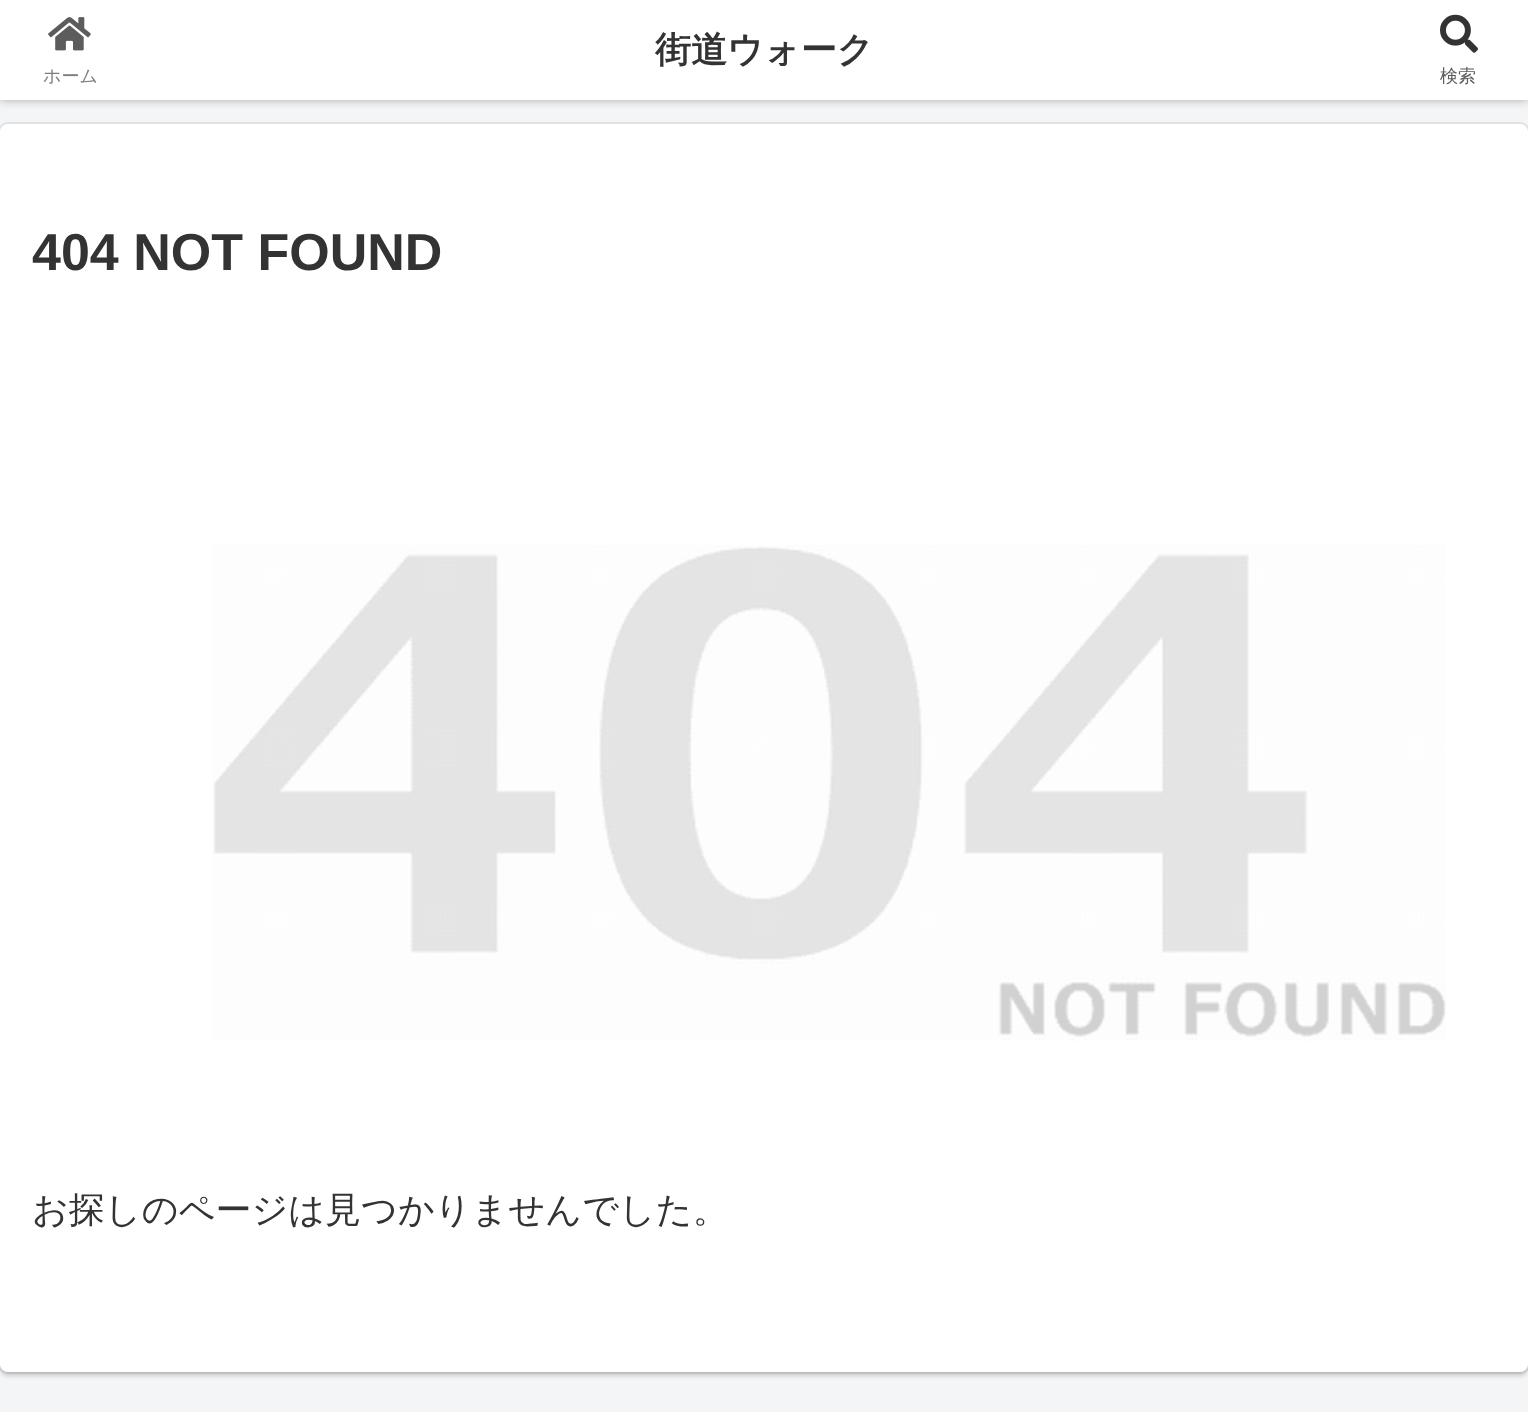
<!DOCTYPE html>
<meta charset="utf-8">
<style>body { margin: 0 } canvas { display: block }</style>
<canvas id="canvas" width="1528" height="1419"></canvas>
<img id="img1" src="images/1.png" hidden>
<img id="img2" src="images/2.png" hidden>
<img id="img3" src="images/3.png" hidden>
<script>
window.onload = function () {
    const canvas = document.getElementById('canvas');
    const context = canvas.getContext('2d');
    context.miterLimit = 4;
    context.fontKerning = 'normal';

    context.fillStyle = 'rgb(244, 245, 247)';
    context.fillRect(0, 0, 1528, 1419);
    context.fillStyle = 'rgb(169, 169, 169)';
    context.filter = 'blur(5px)';
    context.beginPath();
    context.rect(0, 0, 1528, 100);
    context.fill();
    context.filter = 'none';
    context.fillStyle = 'rgb(255, 255, 255)';
    context.fillRect(0, 0, 1528, 100);
    context.drawImage(document.getElementById('img1'), 48, 17, 43, 34);
    context.drawImage(document.getElementById('img2'), 1440, 14, 38, 39);
    context.beginPath();
    context.roundRect(-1, 123, 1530, 1250, 9);
    context.strokeStyle = 'rgb(224, 225, 227)';
    context.lineWidth = 2;
    context.stroke();
    context.fillStyle = 'rgba(0, 0, 0, 0.16)';
    context.filter = 'blur(2px)';
    context.beginPath();
    context.roundRect(0, 128, 1528, 1248, 8);
    context.fill();
    context.filter = 'none';
    context.fillStyle = 'rgb(255, 255, 255)';
    context.beginPath();
    context.roundRect(0, 124, 1528, 1248, 8);
    context.fill();
    context.drawImage(document.getElementById('img3'), 212, 545, 1234, 496);
    context.fillRect(0, 1412, 1528, 7);
    context.font = 'bold 36px WenQuanYi Zen Hei';
    context.fillStyle = 'rgb(51, 51, 51)';
    context.fillText('街道ウォーク', 655, 62);
    context.font = '500 18px WenQuanYi Zen Hei';
    context.fillStyle = 'rgb(124, 124, 124)';
    context.fillText('ホーム', 43, 82);
    context.fillStyle = 'rgb(92, 92, 92)';
    context.fillText('検索', 1440, 82);
    context.font = 'bold 52px Liberation Sans';
    context.fillStyle = 'rgb(51, 51, 51)';
    context.fillText('404 NOT FOUND', 32, 270);
    context.font = '500 36px WenQuanYi Zen Hei';
    context.fillText('お探しのページは見つかりませんでした。', 32, 1222);
};
</script>
